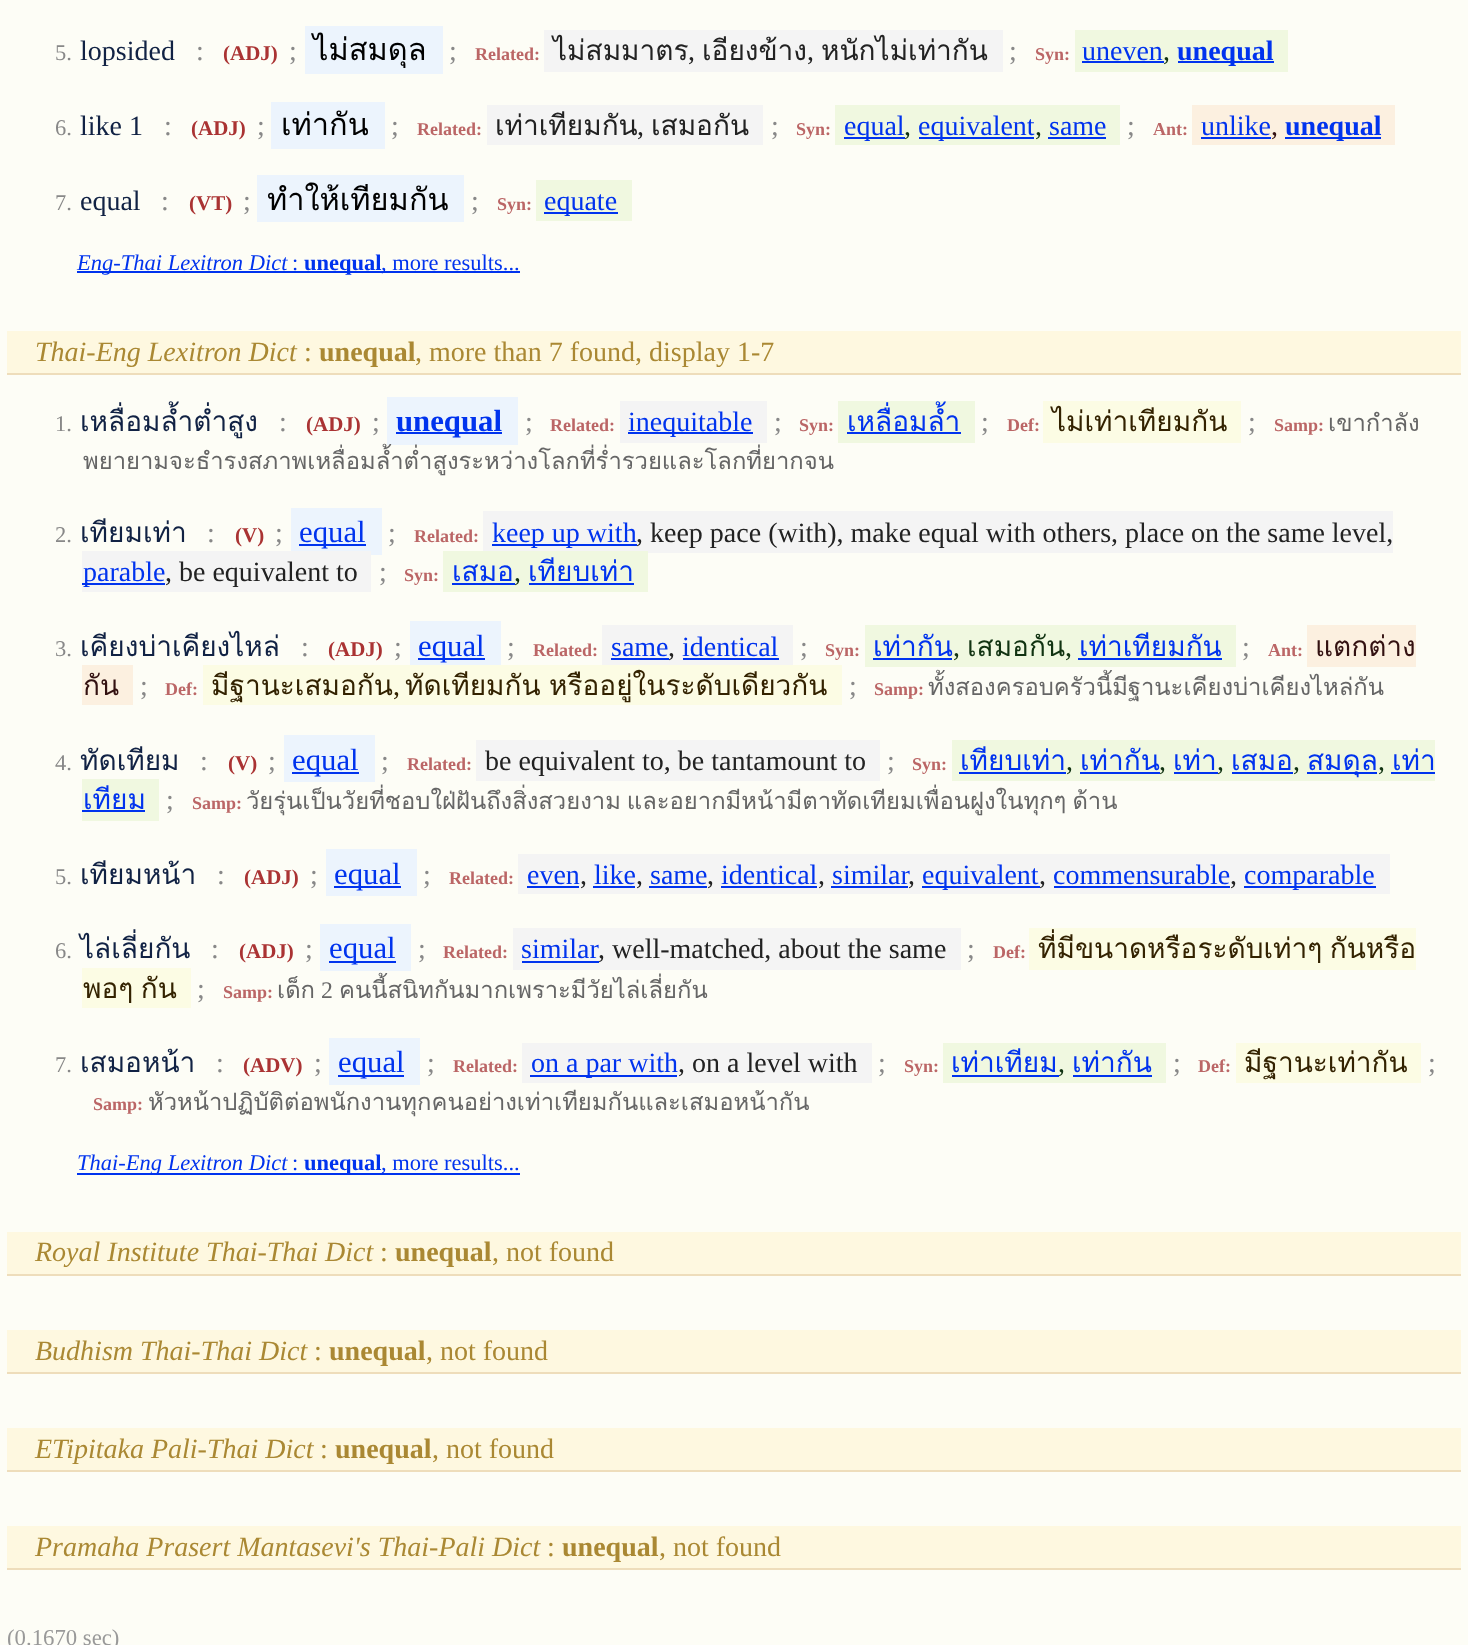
<!DOCTYPE html>
<meta charset="utf-8">
<style>body { margin: 0 } canvas { display: block }</style>
<canvas id="canvas" width="1468" height="1645"></canvas>
<script>
window.onload = function () {
    const canvas = document.getElementById('canvas');
    const context = canvas.getContext('2d');
    context.miterLimit = 4;
    context.fontKerning = 'normal';

    context.fillStyle = 'rgb(253, 253, 246)';
    context.fillRect(0, 0, 1468, 1645);
    context.fillStyle = 'rgb(236, 244, 253)';
    context.fillRect(305, 26, 138, 48);
    context.fillStyle = 'rgb(244, 244, 244)';
    context.fillRect(544, 30, 459, 42);
    context.fillStyle = 'rgb(240, 248, 224)';
    context.fillRect(1075, 30, 213, 42);
    context.fillStyle = 'rgb(0, 51, 238)';
    context.fillRect(1082, 61, 82, 2);
    context.fillRect(1178, 61, 96, 2);
    context.fillStyle = 'rgb(236, 244, 253)';
    context.fillRect(271, 102, 114, 47);
    context.fillStyle = 'rgb(244, 244, 244)';
    context.fillRect(487, 105, 276, 40);
    context.fillStyle = 'rgb(240, 248, 224)';
    context.fillRect(835, 105, 285, 40);
    context.fillStyle = 'rgb(0, 51, 238)';
    context.fillRect(844, 137, 61, 2);
    context.fillRect(919, 137, 115, 2);
    context.fillRect(1048, 137, 58, 2);
    context.fillStyle = 'rgb(252, 240, 224)';
    context.fillRect(1192, 105, 203, 40);
    context.fillStyle = 'rgb(0, 51, 238)';
    context.fillRect(1201, 137, 70, 2);
    context.fillRect(1285, 137, 96, 2);
    context.fillStyle = 'rgb(236, 244, 253)';
    context.fillRect(257, 175, 207, 47);
    context.fillStyle = 'rgb(240, 248, 224)';
    context.fillRect(536, 180, 96, 41);
    context.fillStyle = 'rgb(0, 51, 238)';
    context.fillRect(544, 212, 74, 2);
    context.fillRect(77, 271, 443, 2);
    context.fillStyle = 'rgb(254, 248, 224)';
    context.fillRect(7, 331, 1454, 42);
    context.fillStyle = 'rgb(238, 221, 187)';
    context.fillRect(7, 373, 1454, 2);
    context.fillStyle = 'rgb(236, 244, 253)';
    context.fillRect(387, 397, 131, 48);
    context.fillStyle = 'rgb(0, 51, 238)';
    context.fillRect(396, 432, 106, 2);
    context.fillStyle = 'rgb(244, 244, 244)';
    context.fillRect(620, 401, 147, 42);
    context.fillStyle = 'rgb(0, 51, 238)';
    context.fillRect(628, 432, 125, 2);
    context.fillStyle = 'rgb(240, 248, 224)';
    context.fillRect(838, 401, 137, 42);
    context.fillStyle = 'rgb(0, 51, 238)';
    context.fillRect(847, 432, 114, 2);
    context.fillStyle = 'rgb(252, 252, 228)';
    context.fillRect(1043, 401, 198, 42);
    context.fillStyle = 'rgb(236, 244, 253)';
    context.fillRect(291, 508, 91, 47);
    context.fillStyle = 'rgb(0, 51, 238)';
    context.fillRect(299, 544, 67, 2);
    context.fillStyle = 'rgb(244, 244, 244)';
    context.fillRect(483, 511, 154, 40);
    context.fillStyle = 'rgb(0, 51, 238)';
    context.fillRect(492, 544, 145, 2);
    context.fillStyle = 'rgb(244, 244, 244)';
    context.fillRect(637, 511, 756, 42);
    context.fillRect(82, 551, 289, 41);
    context.fillStyle = 'rgb(0, 51, 238)';
    context.fillRect(82, 583, 83, 2);
    context.fillStyle = 'rgb(240, 248, 224)';
    context.fillRect(443, 551, 205, 41);
    context.fillStyle = 'rgb(0, 51, 238)';
    context.fillRect(452, 583, 63, 2);
    context.fillRect(529, 583, 105, 2);
    context.fillStyle = 'rgb(236, 244, 253)';
    context.fillRect(410, 621, 91, 44);
    context.fillStyle = 'rgb(0, 51, 238)';
    context.fillRect(418, 658, 67, 2);
    context.fillStyle = 'rgb(244, 244, 244)';
    context.fillRect(602, 625, 191, 40);
    context.fillStyle = 'rgb(0, 51, 238)';
    context.fillRect(611, 658, 58, 2);
    context.fillRect(683, 658, 96, 2);
    context.fillStyle = 'rgb(240, 248, 224)';
    context.fillRect(865, 625, 371, 42);
    context.fillStyle = 'rgb(0, 51, 238)';
    context.fillRect(873, 658, 79, 2);
    context.fillRect(1078, 658, 144, 2);
    context.fillStyle = 'rgb(252, 240, 224)';
    context.fillRect(1307, 625, 109, 42);
    context.fillRect(82, 665, 51, 40);
    context.fillStyle = 'rgb(252, 252, 228)';
    context.fillRect(203, 665, 639, 40);
    context.fillStyle = 'rgb(236, 244, 253)';
    context.fillRect(284, 735, 91, 47);
    context.fillStyle = 'rgb(0, 51, 238)';
    context.fillRect(292, 772, 67, 2);
    context.fillStyle = 'rgb(244, 244, 244)';
    context.fillRect(476, 740, 404, 41);
    context.fillStyle = 'rgb(240, 248, 224)';
    context.fillRect(952, 740, 483, 41);
    context.fillStyle = 'rgb(0, 51, 238)';
    context.fillRect(959, 772, 107, 2);
    context.fillRect(1080, 772, 80, 2);
    context.fillRect(1174, 772, 44, 2);
    context.fillRect(1232, 772, 61, 2);
    context.fillRect(1307, 772, 70, 2);
    context.fillRect(1391, 772, 44, 2);
    context.fillStyle = 'rgb(240, 248, 224)';
    context.fillRect(82, 779, 77, 42);
    context.fillStyle = 'rgb(0, 51, 238)';
    context.fillRect(82, 810, 63, 2);
    context.fillStyle = 'rgb(236, 244, 253)';
    context.fillRect(326, 849, 91, 47);
    context.fillStyle = 'rgb(0, 51, 238)';
    context.fillRect(334, 886, 67, 2);
    context.fillStyle = 'rgb(244, 244, 244)';
    context.fillRect(518, 854, 872, 40);
    context.fillStyle = 'rgb(0, 51, 238)';
    context.fillRect(527, 886, 52, 2);
    context.fillRect(593, 886, 42, 2);
    context.fillRect(649, 886, 58, 2);
    context.fillRect(721, 886, 96, 2);
    context.fillRect(831, 886, 77, 2);
    context.fillRect(922, 886, 118, 2);
    context.fillRect(1054, 886, 176, 2);
    context.fillRect(1244, 886, 132, 2);
    context.fillStyle = 'rgb(236, 244, 253)';
    context.fillRect(320, 924, 91, 47);
    context.fillStyle = 'rgb(0, 51, 238)';
    context.fillRect(329, 961, 67, 2);
    context.fillStyle = 'rgb(244, 244, 244)';
    context.fillRect(513, 928, 448, 42);
    context.fillStyle = 'rgb(0, 51, 238)';
    context.fillRect(522, 961, 77, 2);
    context.fillStyle = 'rgb(252, 252, 228)';
    context.fillRect(1029, 928, 387, 42);
    context.fillRect(82, 968, 109, 40);
    context.fillStyle = 'rgb(236, 244, 253)';
    context.fillRect(329, 1038, 91, 47);
    context.fillStyle = 'rgb(0, 51, 238)';
    context.fillRect(338, 1075, 66, 2);
    context.fillStyle = 'rgb(244, 244, 244)';
    context.fillRect(522, 1043, 350, 40);
    context.fillStyle = 'rgb(0, 51, 238)';
    context.fillRect(530, 1075, 147, 2);
    context.fillStyle = 'rgb(240, 248, 224)';
    context.fillRect(943, 1043, 223, 40);
    context.fillStyle = 'rgb(0, 51, 238)';
    context.fillRect(952, 1075, 107, 2);
    context.fillRect(1073, 1075, 79, 2);
    context.fillStyle = 'rgb(252, 252, 228)';
    context.fillRect(1236, 1043, 185, 40);
    context.fillStyle = 'rgb(0, 51, 238)';
    context.fillRect(77, 1173, 443, 2);
    context.fillStyle = 'rgb(254, 248, 224)';
    context.fillRect(7, 1232, 1454, 42);
    context.fillStyle = 'rgb(238, 221, 187)';
    context.fillRect(7, 1274, 1454, 2);
    context.fillStyle = 'rgb(254, 248, 224)';
    context.fillRect(7, 1330, 1454, 42);
    context.fillStyle = 'rgb(238, 221, 187)';
    context.fillRect(7, 1372, 1454, 2);
    context.fillStyle = 'rgb(254, 248, 224)';
    context.fillRect(7, 1428, 1454, 42);
    context.fillStyle = 'rgb(238, 221, 187)';
    context.fillRect(7, 1470, 1454, 2);
    context.fillStyle = 'rgb(254, 248, 224)';
    context.fillRect(7, 1526, 1454, 42);
    context.fillStyle = 'rgb(238, 221, 187)';
    context.fillRect(7, 1568, 1454, 2);
    context.font = '22.5px Liberation Serif';
    context.fillStyle = 'rgb(136, 136, 136)';
    context.fillText('5.', 55, 60);
    context.font = '28px Liberation Serif';
    context.fillStyle = 'rgb(17, 34, 68)';
    context.fillText('lopsided', 80, 60);
    context.fillStyle = 'rgb(136, 136, 136)';
    context.fillText(':', 196, 60);
    context.font = 'bold 21px Liberation Serif';
    context.fillStyle = 'rgb(170, 51, 51)';
    context.fillText('(ADJ)', 223, 60);
    context.font = '28px Liberation Serif';
    context.fillStyle = 'rgb(136, 136, 136)';
    context.fillText(';', 289, 60);
    context.font = '30.75px Loma';
    context.fillStyle = 'rgb(0, 0, 0)';
    context.fillText('ไม่สมดุล', 313, 60);
    context.font = '28px Liberation Serif';
    context.fillStyle = 'rgb(136, 136, 136)';
    context.fillText(';', 449, 60);
    context.font = 'bold 18px Liberation Serif';
    context.fillStyle = 'rgb(187, 102, 102)';
    context.fillText('Related:', 475, 60);
    context.font = '28px Loma';
    context.fillStyle = 'rgb(34, 34, 34)';
    context.fillText('ไม่สมมาตร', 553, 60);
    context.font = '28px Liberation Serif';
    context.fillText(',', 688, 60);
    context.font = '28px Loma';
    context.fillText('เอียงข้าง', 702, 60);
    context.font = '28px Liberation Serif';
    context.fillText(',', 807, 60);
    context.font = '28px Loma';
    context.fillText('หนักไม่เท่ากัน', 821, 60);
    context.font = '28px Liberation Serif';
    context.fillStyle = 'rgb(136, 136, 136)';
    context.fillText(';', 1009, 60);
    context.font = 'bold 18px Liberation Serif';
    context.fillStyle = 'rgb(187, 102, 102)';
    context.fillText('Syn:', 1035, 60);
    context.font = '28px Liberation Serif';
    context.fillStyle = 'rgb(0, 51, 238)';
    context.fillText('uneven', 1082, 60);
    context.fillStyle = 'rgb(17, 51, 17)';
    context.fillText(',', 1163, 60);
    context.font = 'bold 28px Liberation Serif';
    context.fillStyle = 'rgb(0, 51, 238)';
    context.fillText('unequal', 1177, 60);
    context.font = '22.5px Liberation Serif';
    context.fillStyle = 'rgb(136, 136, 136)';
    context.fillText('6.', 55, 135);
    context.font = '28px Liberation Serif';
    context.fillStyle = 'rgb(17, 34, 68)';
    context.fillText('like 1', 80, 135);
    context.fillStyle = 'rgb(136, 136, 136)';
    context.fillText(':', 164, 135);
    context.font = 'bold 21px Liberation Serif';
    context.fillStyle = 'rgb(170, 51, 51)';
    context.fillText('(ADJ)', 191, 135);
    context.font = '28px Liberation Serif';
    context.fillStyle = 'rgb(136, 136, 136)';
    context.fillText(';', 257, 135);
    context.font = '30.75px Loma';
    context.fillStyle = 'rgb(0, 0, 0)';
    context.fillText('เท่ากัน', 281, 135);
    context.font = '28px Liberation Serif';
    context.fillStyle = 'rgb(136, 136, 136)';
    context.fillText(';', 391, 135);
    context.font = 'bold 18px Liberation Serif';
    context.fillStyle = 'rgb(187, 102, 102)';
    context.fillText('Related:', 417, 135);
    context.font = '28px Loma';
    context.fillStyle = 'rgb(34, 34, 34)';
    context.fillText('เท่าเทียมกัน', 495, 135);
    context.font = '28px Liberation Serif';
    context.fillText(',', 637, 135);
    context.font = '28px Loma';
    context.fillText('เสมอกัน', 651, 135);
    context.font = '28px Liberation Serif';
    context.fillStyle = 'rgb(136, 136, 136)';
    context.fillText(';', 771, 135);
    context.font = 'bold 18px Liberation Serif';
    context.fillStyle = 'rgb(187, 102, 102)';
    context.fillText('Syn:', 796, 135);
    context.font = '28px Liberation Serif';
    context.fillStyle = 'rgb(0, 51, 238)';
    context.fillText('equal', 844, 135);
    context.fillStyle = 'rgb(17, 51, 17)';
    context.fillText(',', 904, 135);
    context.fillStyle = 'rgb(0, 51, 238)';
    context.fillText('equivalent', 918, 135);
    context.fillStyle = 'rgb(17, 51, 17)';
    context.fillText(',', 1035, 135);
    context.fillStyle = 'rgb(0, 51, 238)';
    context.fillText('same', 1049, 135);
    context.fillStyle = 'rgb(136, 136, 136)';
    context.fillText(';', 1127, 135);
    context.font = 'bold 18px Liberation Serif';
    context.fillStyle = 'rgb(187, 102, 102)';
    context.fillText('Ant:', 1153, 135);
    context.font = '28px Liberation Serif';
    context.fillStyle = 'rgb(0, 51, 238)';
    context.fillText('unlike', 1201, 135);
    context.fillStyle = 'rgb(51, 17, 17)';
    context.fillText(',', 1271, 135);
    context.font = 'bold 28px Liberation Serif';
    context.fillStyle = 'rgb(0, 51, 238)';
    context.fillText('unequal', 1285, 135);
    context.font = '22.5px Liberation Serif';
    context.fillStyle = 'rgb(136, 136, 136)';
    context.fillText('7.', 55, 210);
    context.font = '28px Liberation Serif';
    context.fillStyle = 'rgb(17, 34, 68)';
    context.fillText('equal', 80, 210);
    context.fillStyle = 'rgb(136, 136, 136)';
    context.fillText(':', 161, 210);
    context.font = 'bold 21px Liberation Serif';
    context.fillStyle = 'rgb(170, 51, 51)';
    context.fillText('(VT)', 189, 210);
    context.font = '28px Liberation Serif';
    context.fillStyle = 'rgb(136, 136, 136)';
    context.fillText(';', 243, 210);
    context.font = '30.75px Loma';
    context.fillStyle = 'rgb(0, 0, 0)';
    context.fillText('ทำให้เทียมกัน', 267, 210);
    context.font = '28px Liberation Serif';
    context.fillStyle = 'rgb(136, 136, 136)';
    context.fillText(';', 471, 210);
    context.font = 'bold 18px Liberation Serif';
    context.fillStyle = 'rgb(187, 102, 102)';
    context.fillText('Syn:', 497, 210);
    context.font = '28px Liberation Serif';
    context.fillStyle = 'rgb(0, 51, 238)';
    context.fillText('equate', 544, 210);
    context.font = 'italic 22.5px Liberation Serif';
    context.fillText('Eng-Thai Lexitron Dict', 77, 270);
    context.font = '22.5px Liberation Serif';
    context.fillText(':', 292, 270);
    context.font = 'bold 22.5px Liberation Serif';
    context.fillText('unequal', 304, 270);
    context.font = '22.5px Liberation Serif';
    context.fillText(', more results...', 381, 270);
    context.font = 'italic 28px Liberation Serif';
    context.fillStyle = 'rgb(170, 136, 51)';
    context.fillText('Thai-Eng Lexitron Dict', 35, 361);
    context.font = '28px Liberation Serif';
    context.fillText(':', 304, 361);
    context.font = 'bold 28px Liberation Serif';
    context.fillText('unequal', 319, 361);
    context.font = '28px Liberation Serif';
    context.fillText(', more than 7 found, display 1-7', 415, 361);
    context.font = '22.5px Liberation Serif';
    context.fillStyle = 'rgb(136, 136, 136)';
    context.fillText('1.', 55, 431);
    context.font = '28px Loma';
    context.fillStyle = 'rgb(17, 34, 68)';
    context.fillText('เหลื่อมล้ำต่ำสูง', 80, 431);
    context.font = '28px Liberation Serif';
    context.fillStyle = 'rgb(136, 136, 136)';
    context.fillText(':', 279, 431);
    context.font = 'bold 21px Liberation Serif';
    context.fillStyle = 'rgb(170, 51, 51)';
    context.fillText('(ADJ)', 306, 431);
    context.font = '28px Liberation Serif';
    context.fillStyle = 'rgb(136, 136, 136)';
    context.fillText(';', 372, 431);
    context.font = 'bold 30.75px Liberation Serif';
    context.fillStyle = 'rgb(0, 51, 238)';
    context.fillText('unequal', 396, 431);
    context.font = '28px Liberation Serif';
    context.fillStyle = 'rgb(136, 136, 136)';
    context.fillText(';', 525, 431);
    context.font = 'bold 18px Liberation Serif';
    context.fillStyle = 'rgb(187, 102, 102)';
    context.fillText('Related:', 550, 431);
    context.font = '28px Liberation Serif';
    context.fillStyle = 'rgb(0, 51, 238)';
    context.fillText('inequitable', 628, 431);
    context.fillStyle = 'rgb(136, 136, 136)';
    context.fillText(';', 774, 431);
    context.font = 'bold 18px Liberation Serif';
    context.fillStyle = 'rgb(187, 102, 102)';
    context.fillText('Syn:', 799, 431);
    context.font = '28px Loma';
    context.fillStyle = 'rgb(0, 51, 238)';
    context.fillText('เหลื่อมล้ำ', 847, 431);
    context.font = '28px Liberation Serif';
    context.fillStyle = 'rgb(136, 136, 136)';
    context.fillText(';', 981, 431);
    context.font = 'bold 18px Liberation Serif';
    context.fillStyle = 'rgb(187, 102, 102)';
    context.fillText('Def:', 1007, 431);
    context.font = '28px Loma';
    context.fillStyle = 'rgb(51, 34, 0)';
    context.fillText('ไม่เท่าเทียมกัน', 1052, 431);
    context.font = '28px Liberation Serif';
    context.fillStyle = 'rgb(136, 136, 136)';
    context.fillText(';', 1248, 431);
    context.font = 'bold 18px Liberation Serif';
    context.fillStyle = 'rgb(187, 102, 102)';
    context.fillText('Samp:', 1274, 431);
    context.font = '23.8px Loma';
    context.fillStyle = 'rgb(102, 102, 102)';
    context.fillText('เขากำลัง', 1328, 431);
    context.fillText('พยายามจะธำรงสภาพเหลื่อมล้ำต่ำสูงระหว่างโลกที่ร่ำรวยและโลกที่ยากจน', 83, 469);
    context.font = '22.5px Liberation Serif';
    context.fillStyle = 'rgb(136, 136, 136)';
    context.fillText('2.', 55, 542);
    context.font = '28px Loma';
    context.fillStyle = 'rgb(17, 34, 68)';
    context.fillText('เทียมเท่า', 80, 542);
    context.font = '28px Liberation Serif';
    context.fillStyle = 'rgb(136, 136, 136)';
    context.fillText(':', 207, 542);
    context.font = 'bold 21px Liberation Serif';
    context.fillStyle = 'rgb(170, 51, 51)';
    context.fillText('(V)', 235, 542);
    context.font = '28px Liberation Serif';
    context.fillStyle = 'rgb(136, 136, 136)';
    context.fillText(';', 275, 542);
    context.font = '30.75px Liberation Serif';
    context.fillStyle = 'rgb(0, 51, 238)';
    context.fillText('equal', 299, 542);
    context.font = '28px Liberation Serif';
    context.fillStyle = 'rgb(136, 136, 136)';
    context.fillText(';', 388, 542);
    context.font = 'bold 18px Liberation Serif';
    context.fillStyle = 'rgb(187, 102, 102)';
    context.fillText('Related:', 414, 542);
    context.font = '28px Liberation Serif';
    context.fillStyle = 'rgb(0, 51, 238)';
    context.fillText('keep up with', 492, 542);
    context.fillStyle = 'rgb(34, 34, 34)';
    context.fillText(', keep pace (with), make equal with others, place on the same level,', 636, 542);
    context.fillStyle = 'rgb(0, 51, 238)';
    context.fillText('parable', 83, 581);
    context.fillStyle = 'rgb(34, 34, 34)';
    context.fillText(', be equivalent to', 165, 581);
    context.fillStyle = 'rgb(136, 136, 136)';
    context.fillText(';', 379, 581);
    context.font = 'bold 18px Liberation Serif';
    context.fillStyle = 'rgb(187, 102, 102)';
    context.fillText('Syn:', 404, 581);
    context.font = '28px Loma';
    context.fillStyle = 'rgb(0, 51, 238)';
    context.fillText('เสมอ', 452, 581);
    context.font = '28px Liberation Serif';
    context.fillStyle = 'rgb(17, 51, 17)';
    context.fillText(',', 514, 581);
    context.font = '28px Loma';
    context.fillStyle = 'rgb(0, 51, 238)';
    context.fillText('เทียบเท่า', 528, 581);
    context.font = '22.5px Liberation Serif';
    context.fillStyle = 'rgb(136, 136, 136)';
    context.fillText('3.', 55, 656);
    context.font = '28px Loma';
    context.fillStyle = 'rgb(17, 34, 68)';
    context.fillText('เคียงบ่าเคียงไหล่', 80, 656);
    context.font = '28px Liberation Serif';
    context.fillStyle = 'rgb(136, 136, 136)';
    context.fillText(':', 301, 656);
    context.font = 'bold 21px Liberation Serif';
    context.fillStyle = 'rgb(170, 51, 51)';
    context.fillText('(ADJ)', 328, 656);
    context.font = '28px Liberation Serif';
    context.fillStyle = 'rgb(136, 136, 136)';
    context.fillText(';', 394, 656);
    context.font = '30.75px Liberation Serif';
    context.fillStyle = 'rgb(0, 51, 238)';
    context.fillText('equal', 418, 656);
    context.font = '28px Liberation Serif';
    context.fillStyle = 'rgb(136, 136, 136)';
    context.fillText(';', 507, 656);
    context.font = 'bold 18px Liberation Serif';
    context.fillStyle = 'rgb(187, 102, 102)';
    context.fillText('Related:', 533, 656);
    context.font = '28px Liberation Serif';
    context.fillStyle = 'rgb(0, 51, 238)';
    context.fillText('same', 611, 656);
    context.fillStyle = 'rgb(34, 34, 34)';
    context.fillText(',', 668, 656);
    context.fillStyle = 'rgb(0, 51, 238)';
    context.fillText('identical', 682, 656);
    context.fillStyle = 'rgb(136, 136, 136)';
    context.fillText(';', 800, 656);
    context.font = 'bold 18px Liberation Serif';
    context.fillStyle = 'rgb(187, 102, 102)';
    context.fillText('Syn:', 825, 656);
    context.font = '28px Loma';
    context.fillStyle = 'rgb(0, 51, 238)';
    context.fillText('เท่ากัน', 873, 656);
    context.font = '28px Liberation Serif';
    context.fillStyle = 'rgb(17, 51, 17)';
    context.fillText(',', 953, 656);
    context.font = '28px Loma';
    context.fillText('เสมอกัน', 967, 656);
    context.font = '28px Liberation Serif';
    context.fillText(',', 1065, 656);
    context.font = '28px Loma';
    context.fillStyle = 'rgb(0, 51, 238)';
    context.fillText('เท่าเทียมกัน', 1079, 656);
    context.font = '28px Liberation Serif';
    context.fillStyle = 'rgb(136, 136, 136)';
    context.fillText(';', 1242, 656);
    context.font = 'bold 18px Liberation Serif';
    context.fillStyle = 'rgb(187, 102, 102)';
    context.fillText('Ant:', 1268, 656);
    context.font = '28px Loma';
    context.fillStyle = 'rgb(51, 17, 17)';
    context.fillText('แตกต่าง', 1315, 656);
    context.fillText('กัน', 83, 695);
    context.font = '28px Liberation Serif';
    context.fillStyle = 'rgb(136, 136, 136)';
    context.fillText(';', 140, 695);
    context.font = 'bold 18px Liberation Serif';
    context.fillStyle = 'rgb(187, 102, 102)';
    context.fillText('Def:', 165, 695);
    context.font = '28px Loma';
    context.fillStyle = 'rgb(51, 34, 0)';
    context.fillText('มีฐานะเสมอกัน', 211, 695);
    context.font = '28px Liberation Serif';
    context.fillStyle = 'rgb(136, 136, 136)';
    context.fillText(';', 849, 695);
    context.font = 'bold 18px Liberation Serif';
    context.fillStyle = 'rgb(187, 102, 102)';
    context.fillText('Samp:', 874, 695);
    context.font = '23.8px Loma';
    context.fillStyle = 'rgb(102, 102, 102)';
    context.fillText('ทั้งสองครอบครัวนี้มีฐานะเคียงบ่าเคียงไหล่กัน', 928, 695);
    context.font = '28px Liberation Serif';
    context.fillStyle = 'rgb(51, 34, 0)';
    context.fillText(',', 393, 695);
    context.wordSpacing = '-1px';
    context.font = '28px Loma';
    context.fillText('ทัดเทียมกัน หรืออยู่ในระดับเดียวกัน', 405, 695);
    context.wordSpacing = '0px';
    context.font = '22.5px Liberation Serif';
    context.fillStyle = 'rgb(136, 136, 136)';
    context.fillText('4.', 55, 770);
    context.font = '28px Loma';
    context.fillStyle = 'rgb(17, 34, 68)';
    context.fillText('ทัดเทียม', 80, 770);
    context.font = '28px Liberation Serif';
    context.fillStyle = 'rgb(136, 136, 136)';
    context.fillText(':', 200, 770);
    context.font = 'bold 21px Liberation Serif';
    context.fillStyle = 'rgb(170, 51, 51)';
    context.fillText('(V)', 228, 770);
    context.font = '28px Liberation Serif';
    context.fillStyle = 'rgb(136, 136, 136)';
    context.fillText(';', 268, 770);
    context.font = '30.75px Liberation Serif';
    context.fillStyle = 'rgb(0, 51, 238)';
    context.fillText('equal', 292, 770);
    context.font = '28px Liberation Serif';
    context.fillStyle = 'rgb(136, 136, 136)';
    context.fillText(';', 381, 770);
    context.font = 'bold 18px Liberation Serif';
    context.fillStyle = 'rgb(187, 102, 102)';
    context.fillText('Related:', 407, 770);
    context.font = '28px Liberation Serif';
    context.fillStyle = 'rgb(34, 34, 34)';
    context.fillText('be equivalent to, be tantamount to', 485, 770);
    context.fillStyle = 'rgb(136, 136, 136)';
    context.fillText(';', 887, 770);
    context.font = 'bold 18px Liberation Serif';
    context.fillStyle = 'rgb(187, 102, 102)';
    context.fillText('Syn:', 912, 770);
    context.font = '28px Loma';
    context.fillStyle = 'rgb(0, 51, 238)';
    context.fillText('เทียบเท่า', 960, 770);
    context.font = '28px Liberation Serif';
    context.fillStyle = 'rgb(17, 51, 17)';
    context.fillText(',', 1066, 770);
    context.font = '28px Loma';
    context.fillStyle = 'rgb(0, 51, 238)';
    context.fillText('เท่ากัน', 1080, 770);
    context.font = '28px Liberation Serif';
    context.fillStyle = 'rgb(17, 51, 17)';
    context.fillText(',', 1159, 770);
    context.font = '28px Loma';
    context.fillStyle = 'rgb(0, 51, 238)';
    context.fillText('เท่า', 1173, 770);
    context.font = '28px Liberation Serif';
    context.fillStyle = 'rgb(17, 51, 17)';
    context.fillText(',', 1217, 770);
    context.font = '28px Loma';
    context.fillStyle = 'rgb(0, 51, 238)';
    context.fillText('เสมอ', 1231, 770);
    context.font = '28px Liberation Serif';
    context.fillStyle = 'rgb(17, 51, 17)';
    context.fillText(',', 1293, 770);
    context.font = '28px Loma';
    context.fillStyle = 'rgb(0, 51, 238)';
    context.fillText('สมดุล', 1307, 770);
    context.font = '28px Liberation Serif';
    context.fillStyle = 'rgb(17, 51, 17)';
    context.fillText(',', 1378, 770);
    context.font = '28px Loma';
    context.fillStyle = 'rgb(0, 51, 238)';
    context.fillText('เท่า', 1392, 770);
    context.fillText('เทียม', 83, 809);
    context.font = '28px Liberation Serif';
    context.fillStyle = 'rgb(136, 136, 136)';
    context.fillText(';', 166, 809);
    context.font = 'bold 18px Liberation Serif';
    context.fillStyle = 'rgb(187, 102, 102)';
    context.fillText('Samp:', 192, 809);
    context.wordSpacing = '-2px';
    context.font = '23.8px Loma';
    context.fillStyle = 'rgb(102, 102, 102)';
    context.fillText('วัยรุ่นเป็นวัยที่ชอบใฝ่ฝันถึงสิ่งสวยงาม และอยากมีหน้ามีตาทัดเทียมเพื่อนฝูงในทุกๆ ด้าน', 246, 809);
    context.wordSpacing = '0px';
    context.font = '22.5px Liberation Serif';
    context.fillStyle = 'rgb(136, 136, 136)';
    context.fillText('5.', 55, 884);
    context.font = '28px Loma';
    context.fillStyle = 'rgb(17, 34, 68)';
    context.fillText('เทียมหน้า', 80, 884);
    context.font = '28px Liberation Serif';
    context.fillStyle = 'rgb(136, 136, 136)';
    context.fillText(':', 217, 884);
    context.font = 'bold 21px Liberation Serif';
    context.fillStyle = 'rgb(170, 51, 51)';
    context.fillText('(ADJ)', 244, 884);
    context.font = '28px Liberation Serif';
    context.fillStyle = 'rgb(136, 136, 136)';
    context.fillText(';', 310, 884);
    context.font = '30.75px Liberation Serif';
    context.fillStyle = 'rgb(0, 51, 238)';
    context.fillText('equal', 334, 884);
    context.font = '28px Liberation Serif';
    context.fillStyle = 'rgb(136, 136, 136)';
    context.fillText(';', 423, 884);
    context.font = 'bold 18px Liberation Serif';
    context.fillStyle = 'rgb(187, 102, 102)';
    context.fillText('Related:', 449, 884);
    context.font = '28px Liberation Serif';
    context.fillStyle = 'rgb(0, 51, 238)';
    context.fillText('even', 527, 884);
    context.fillStyle = 'rgb(34, 34, 34)';
    context.fillText(',', 580, 884);
    context.fillStyle = 'rgb(0, 51, 238)';
    context.fillText('like', 594, 884);
    context.fillStyle = 'rgb(34, 34, 34)';
    context.fillText(',', 636, 884);
    context.fillStyle = 'rgb(0, 51, 238)';
    context.fillText('same', 650, 884);
    context.fillStyle = 'rgb(34, 34, 34)';
    context.fillText(',', 707, 884);
    context.fillStyle = 'rgb(0, 51, 238)';
    context.fillText('identical', 721, 884);
    context.fillStyle = 'rgb(34, 34, 34)';
    context.fillText(',', 818, 884);
    context.fillStyle = 'rgb(0, 51, 238)';
    context.fillText('similar', 832, 884);
    context.fillStyle = 'rgb(34, 34, 34)';
    context.fillText(',', 908, 884);
    context.fillStyle = 'rgb(0, 51, 238)';
    context.fillText('equivalent', 922, 884);
    context.fillStyle = 'rgb(34, 34, 34)';
    context.fillText(',', 1039, 884);
    context.fillStyle = 'rgb(0, 51, 238)';
    context.fillText('commensurable', 1053, 884);
    context.fillStyle = 'rgb(34, 34, 34)';
    context.fillText(',', 1230, 884);
    context.fillStyle = 'rgb(0, 51, 238)';
    context.fillText('comparable', 1244, 884);
    context.font = '22.5px Liberation Serif';
    context.fillStyle = 'rgb(136, 136, 136)';
    context.fillText('6.', 55, 958);
    context.font = '28px Loma';
    context.fillStyle = 'rgb(17, 34, 68)';
    context.fillText('ไล่เลี่ยกัน', 80, 958);
    context.font = '28px Liberation Serif';
    context.fillStyle = 'rgb(136, 136, 136)';
    context.fillText(':', 211, 958);
    context.font = 'bold 21px Liberation Serif';
    context.fillStyle = 'rgb(170, 51, 51)';
    context.fillText('(ADJ)', 239, 958);
    context.font = '28px Liberation Serif';
    context.fillStyle = 'rgb(136, 136, 136)';
    context.fillText(';', 305, 958);
    context.font = '30.75px Liberation Serif';
    context.fillStyle = 'rgb(0, 51, 238)';
    context.fillText('equal', 329, 958);
    context.font = '28px Liberation Serif';
    context.fillStyle = 'rgb(136, 136, 136)';
    context.fillText(';', 418, 958);
    context.font = 'bold 18px Liberation Serif';
    context.fillStyle = 'rgb(187, 102, 102)';
    context.fillText('Related:', 443, 958);
    context.font = '28px Liberation Serif';
    context.fillStyle = 'rgb(0, 51, 238)';
    context.fillText('similar', 521, 958);
    context.fillStyle = 'rgb(34, 34, 34)';
    context.fillText(', well-matched, about the same', 598, 958);
    context.fillStyle = 'rgb(136, 136, 136)';
    context.fillText(';', 967, 958);
    context.font = 'bold 18px Liberation Serif';
    context.fillStyle = 'rgb(187, 102, 102)';
    context.fillText('Def:', 993, 958);
    context.wordSpacing = '-2px';
    context.font = '28px Loma';
    context.fillStyle = 'rgb(51, 34, 0)';
    context.fillText('ที่มีขนาดหรือระดับเท่าๆ กันหรือ', 1038, 958);
    context.fillText('พอๆ กัน', 83, 998);
    context.wordSpacing = '0px';
    context.font = '28px Liberation Serif';
    context.fillStyle = 'rgb(136, 136, 136)';
    context.fillText(';', 197, 998);
    context.font = 'bold 18px Liberation Serif';
    context.fillStyle = 'rgb(187, 102, 102)';
    context.fillText('Samp:', 223, 998);
    context.font = '23.8px Loma';
    context.fillStyle = 'rgb(102, 102, 102)';
    context.fillText('เด็ก', 277, 998);
    context.font = '23.8px Liberation Serif';
    context.fillText('2', 321, 998);
    context.font = '23.8px Loma';
    context.fillText('คนนี้สนิทกันมากเพราะมีวัยไล่เลี่ยกัน', 339, 998);
    context.font = '22.5px Liberation Serif';
    context.fillStyle = 'rgb(136, 136, 136)';
    context.fillText('7.', 55, 1072);
    context.font = '28px Loma';
    context.fillStyle = 'rgb(17, 34, 68)';
    context.fillText('เสมอหน้า', 80, 1072);
    context.font = '28px Liberation Serif';
    context.fillStyle = 'rgb(136, 136, 136)';
    context.fillText(':', 216, 1072);
    context.font = 'bold 21px Liberation Serif';
    context.fillStyle = 'rgb(170, 51, 51)';
    context.fillText('(ADV)', 243, 1072);
    context.font = '28px Liberation Serif';
    context.fillStyle = 'rgb(136, 136, 136)';
    context.fillText(';', 314, 1072);
    context.font = '30.75px Liberation Serif';
    context.fillStyle = 'rgb(0, 51, 238)';
    context.fillText('equal', 338, 1072);
    context.font = '28px Liberation Serif';
    context.fillStyle = 'rgb(136, 136, 136)';
    context.fillText(';', 427, 1072);
    context.font = 'bold 18px Liberation Serif';
    context.fillStyle = 'rgb(187, 102, 102)';
    context.fillText('Related:', 453, 1072);
    context.font = '28px Liberation Serif';
    context.fillStyle = 'rgb(0, 51, 238)';
    context.fillText('on a par with', 531, 1072);
    context.fillStyle = 'rgb(34, 34, 34)';
    context.fillText(', on a level with', 678, 1072);
    context.fillStyle = 'rgb(136, 136, 136)';
    context.fillText(';', 878, 1072);
    context.font = 'bold 18px Liberation Serif';
    context.fillStyle = 'rgb(187, 102, 102)';
    context.fillText('Syn:', 904, 1072);
    context.font = '28px Loma';
    context.fillStyle = 'rgb(0, 51, 238)';
    context.fillText('เท่าเทียม', 951, 1072);
    context.font = '28px Liberation Serif';
    context.fillStyle = 'rgb(17, 51, 17)';
    context.fillText(',', 1058, 1072);
    context.font = '28px Loma';
    context.fillStyle = 'rgb(0, 51, 238)';
    context.fillText('เท่ากัน', 1072, 1072);
    context.font = '28px Liberation Serif';
    context.fillStyle = 'rgb(136, 136, 136)';
    context.fillText(';', 1173, 1072);
    context.font = 'bold 18px Liberation Serif';
    context.fillStyle = 'rgb(187, 102, 102)';
    context.fillText('Def:', 1198, 1072);
    context.font = '28px Loma';
    context.fillStyle = 'rgb(51, 34, 0)';
    context.fillText('มีฐานะเท่ากัน', 1244, 1072);
    context.font = '28px Liberation Serif';
    context.fillStyle = 'rgb(136, 136, 136)';
    context.fillText(';', 1428, 1072);
    context.font = 'bold 18px Liberation Serif';
    context.fillStyle = 'rgb(187, 102, 102)';
    context.fillText('Samp:', 93, 1110);
    context.font = '23.8px Loma';
    context.fillStyle = 'rgb(102, 102, 102)';
    context.fillText('หัวหน้าปฏิบัติต่อพนักงานทุกคนอย่างเท่าเทียมกันและเสมอหน้ากัน', 148, 1110);
    context.font = 'italic 22.5px Liberation Serif';
    context.fillStyle = 'rgb(0, 51, 238)';
    context.fillText('Thai-Eng Lexitron Dict', 77, 1170);
    context.font = '22.5px Liberation Serif';
    context.fillText(':', 292, 1170);
    context.font = 'bold 22.5px Liberation Serif';
    context.fillText('unequal', 304, 1170);
    context.font = '22.5px Liberation Serif';
    context.fillText(', more results...', 381, 1170);
    context.font = 'italic 28px Liberation Serif';
    context.fillStyle = 'rgb(170, 136, 51)';
    context.fillText('Royal Institute Thai-Thai Dict', 35, 1261);
    context.font = '28px Liberation Serif';
    context.fillText(':', 380, 1261);
    context.font = 'bold 28px Liberation Serif';
    context.fillText('unequal', 395, 1261);
    context.font = '28px Liberation Serif';
    context.fillText(', not found', 492, 1261);
    context.font = 'italic 28px Liberation Serif';
    context.fillText('Budhism Thai-Thai Dict', 35, 1360);
    context.font = '28px Liberation Serif';
    context.fillText(':', 314, 1360);
    context.font = 'bold 28px Liberation Serif';
    context.fillText('unequal', 329, 1360);
    context.font = '28px Liberation Serif';
    context.fillText(', not found', 426, 1360);
    context.font = 'italic 28px Liberation Serif';
    context.fillText('ETipitaka Pali-Thai Dict', 35, 1458);
    context.font = '28px Liberation Serif';
    context.fillText(':', 320, 1458);
    context.font = 'bold 28px Liberation Serif';
    context.fillText('unequal', 335, 1458);
    context.font = '28px Liberation Serif';
    context.fillText(', not found', 432, 1458);
    context.font = 'italic 28px Liberation Serif';
    context.fillText('Pramaha Prasert Mantasevi\'s Thai-Pali Dict', 35, 1556);
    context.font = '28px Liberation Serif';
    context.fillText(':', 547, 1556);
    context.font = 'bold 28px Liberation Serif';
    context.fillText('unequal', 562, 1556);
    context.font = '28px Liberation Serif';
    context.fillText(', not found', 659, 1556);
    context.font = '22.75px Liberation Serif';
    context.fillStyle = 'rgb(153, 153, 153)';
    context.fillText('(0.1670 sec)', 7, 1645);
};
</script>
